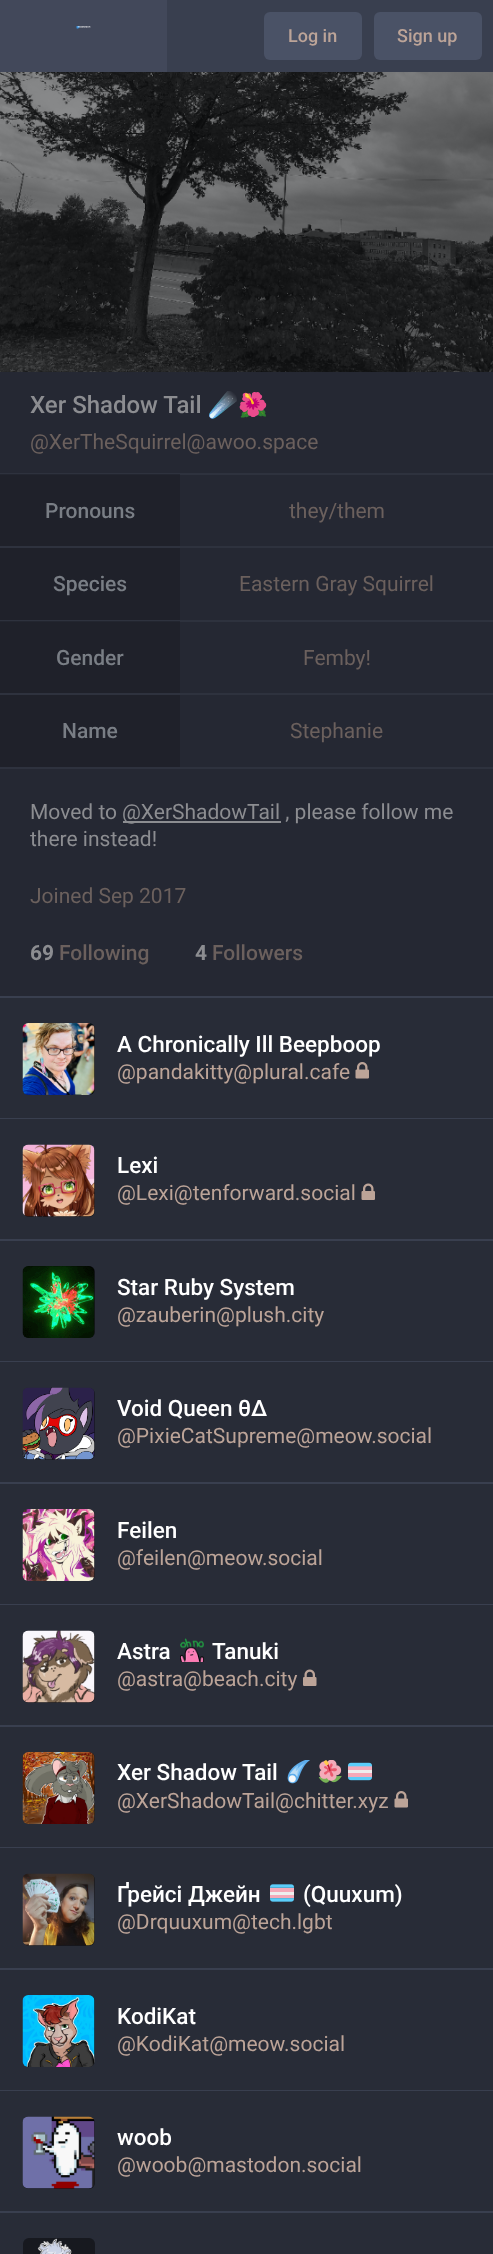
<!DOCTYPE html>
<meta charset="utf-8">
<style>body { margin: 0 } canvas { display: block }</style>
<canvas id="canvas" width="493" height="2254"></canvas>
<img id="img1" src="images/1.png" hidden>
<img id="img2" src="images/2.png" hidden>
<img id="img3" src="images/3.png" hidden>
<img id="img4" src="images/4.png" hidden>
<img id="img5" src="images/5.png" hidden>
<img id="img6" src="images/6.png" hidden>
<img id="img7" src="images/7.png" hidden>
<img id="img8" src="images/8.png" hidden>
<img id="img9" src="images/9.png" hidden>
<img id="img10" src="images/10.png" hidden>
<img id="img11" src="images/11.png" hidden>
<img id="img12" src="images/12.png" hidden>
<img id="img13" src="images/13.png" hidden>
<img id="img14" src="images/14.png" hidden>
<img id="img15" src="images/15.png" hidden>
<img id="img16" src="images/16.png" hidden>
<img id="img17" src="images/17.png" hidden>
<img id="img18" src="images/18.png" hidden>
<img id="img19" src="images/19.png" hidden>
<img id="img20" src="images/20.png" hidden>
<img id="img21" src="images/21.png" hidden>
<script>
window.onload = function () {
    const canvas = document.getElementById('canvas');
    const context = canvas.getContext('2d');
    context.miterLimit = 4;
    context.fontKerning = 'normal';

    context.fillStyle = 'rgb(57, 63, 79)';
    context.fillRect(0, 0, 493, 2254);
    context.fillStyle = 'rgb(66, 72, 90)';
    context.fillRect(0, 0, 167, 72);
    context.drawImage(document.getElementById('img1'), 76, 26, 15, 3);
    context.fillStyle = 'rgb(74, 82, 102)';
    context.beginPath();
    context.roundRect(264, 12, 98, 48, 6);
    context.fill();
    context.beginPath();
    context.roundRect(374, 12, 108, 48, 6);
    context.fill();
    context.fillStyle = 'rgb(21, 22, 25)';
    context.fillRect(0, 72, 493, 300);
    context.drawImage(document.getElementById('img2'), 0, 72, 493, 300);
    context.fillStyle = 'rgb(37, 40, 51)';
    context.fillRect(0, 372, 493, 624);
    context.fillStyle = 'rgb(31, 33, 42)';
    context.fillRect(0, 622, 180, 71);
    context.fillRect(0, 475, 180, 71);
    context.fillStyle = 'rgb(46, 50, 62)';
    context.fillRect(0, 473, 493, 2);
    context.fillStyle = 'rgb(35, 38, 48)';
    context.fillRect(0, 474, 180, 1);
    context.fillStyle = 'rgb(46, 50, 62)';
    context.fillRect(0, 767, 493, 2);
    context.fillRect(0, 546, 493, 2);
    context.fillRect(0, 620, 493, 2);
    context.fillStyle = 'rgb(35, 38, 48)';
    context.fillRect(0, 621, 180, 1);
    context.fillStyle = 'rgb(31, 33, 42)';
    context.fillRect(0, 548, 180, 72);
    context.fillStyle = 'rgb(46, 50, 62)';
    context.fillRect(0, 693, 493, 2);
    context.fillStyle = 'rgb(31, 33, 42)';
    context.fillRect(0, 695, 180, 72);
    context.fillStyle = 'rgb(140, 141, 145)';
    context.fillRect(123, 821, 158, 2);
    context.fillStyle = 'rgb(40, 44, 55)';
    context.fillRect(0, 998, 493, 120);
    context.fillStyle = 'rgb(23, 25, 31)';
    context.beginPath();
    context.roundRect(23, 1023, 72, 72, 6);
    context.fill();
    context.drawImage(document.getElementById('img3'), 22, 1023, 73, 72);
    context.drawImage(document.getElementById('img4'), 355, 1062, 14, 17);
    context.fillStyle = 'rgb(40, 44, 55)';
    context.fillRect(0, 1119, 493, 120);
    context.fillStyle = 'rgb(23, 25, 31)';
    context.beginPath();
    context.roundRect(23, 1145, 72, 72, 6);
    context.fill();
    context.drawImage(document.getElementById('img5'), 22, 1144, 73, 73);
    context.drawImage(document.getElementById('img6'), 361, 1183, 14, 17);
    context.fillStyle = 'rgb(40, 44, 55)';
    context.fillRect(0, 1241, 493, 120);
    context.fillStyle = 'rgb(23, 25, 31)';
    context.beginPath();
    context.roundRect(23, 1266, 72, 72, 6);
    context.fill();
    context.drawImage(document.getElementById('img7'), 22, 1266, 73, 72);
    context.fillStyle = 'rgb(40, 44, 55)';
    context.fillRect(0, 1362, 493, 120);
    context.fillStyle = 'rgb(23, 25, 31)';
    context.beginPath();
    context.roundRect(23, 1388, 72, 72, 6);
    context.fill();
    context.drawImage(document.getElementById('img8'), 22, 1387, 73, 73);
    context.fillStyle = 'rgb(40, 44, 55)';
    context.fillRect(0, 1484, 493, 120);
    context.fillStyle = 'rgb(23, 25, 31)';
    context.beginPath();
    context.roundRect(23, 1509, 72, 72, 6);
    context.fill();
    context.drawImage(document.getElementById('img9'), 22, 1509, 73, 72);
    context.fillStyle = 'rgb(40, 44, 55)';
    context.fillRect(0, 1605, 493, 120);
    context.fillStyle = 'rgb(23, 25, 31)';
    context.beginPath();
    context.roundRect(23, 1631, 72, 72, 6);
    context.fill();
    context.drawImage(document.getElementById('img10'), 22, 1630, 73, 73);
    context.drawImage(document.getElementById('img11'), 180, 1638, 24, 24);
    context.drawImage(document.getElementById('img12'), 303, 1669, 14, 17);
    context.fillStyle = 'rgb(40, 44, 55)';
    context.fillRect(0, 1727, 493, 120);
    context.fillStyle = 'rgb(23, 25, 31)';
    context.beginPath();
    context.roundRect(23, 1752, 72, 72, 6);
    context.fill();
    context.drawImage(document.getElementById('img13'), 22, 1752, 73, 72);
    context.drawImage(document.getElementById('img14'), 287, 1760, 23, 24);
    context.drawImage(document.getElementById('img15'), 318, 1760, 24, 23);
    context.drawImage(document.getElementById('img16'), 348, 1762, 24, 19);
    context.drawImage(document.getElementById('img4'), 394, 1791, 14, 17);
    context.fillStyle = 'rgb(40, 44, 55)';
    context.fillRect(0, 1848, 493, 120);
    context.fillStyle = 'rgb(23, 25, 31)';
    context.beginPath();
    context.roundRect(23, 1874, 72, 72, 6);
    context.fill();
    context.drawImage(document.getElementById('img17'), 22, 1873, 73, 73);
    context.drawImage(document.getElementById('img18'), 270, 1884, 24, 18);
    context.fillStyle = 'rgb(40, 44, 55)';
    context.fillRect(0, 1970, 493, 120);
    context.fillStyle = 'rgb(23, 25, 31)';
    context.beginPath();
    context.roundRect(23, 1995, 72, 72, 6);
    context.fill();
    context.drawImage(document.getElementById('img19'), 22, 1995, 73, 72);
    context.fillStyle = 'rgb(40, 44, 55)';
    context.fillRect(0, 2091, 493, 120);
    context.fillStyle = 'rgb(23, 25, 31)';
    context.beginPath();
    context.roundRect(23, 2117, 72, 72, 6);
    context.fill();
    context.drawImage(document.getElementById('img20'), 22, 2116, 73, 73);
    context.fillStyle = 'rgb(40, 44, 55)';
    context.fillRect(0, 2213, 493, 41);
    context.fillStyle = 'rgb(23, 25, 31)';
    context.beginPath();
    context.roundRect(23, 2238, 72, 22, 6);
    context.fill();
    context.drawImage(document.getElementById('img21'), 37, 2238, 35, 16);
    context.font = '500 18px Roboto';
    context.fillStyle = 'rgb(188, 164, 152)';
    context.fillText('Log in', 288, 42);
    context.fillText('Sign up', 397, 42);
    context.font = '500 24px Roboto';
    context.fillStyle = 'rgb(140, 141, 145)';
    context.fillText('Xer Shadow Tail', 30, 413);
    context.font = '24px Noto Color Emoji';
    context.fillText('☄️🌺', 208, 413);
    context.font = '21px Roboto';
    context.fillStyle = 'rgb(107, 96, 93)';
    context.fillText('@XerTheSquirrel@awoo.space', 30, 449);
    context.font = '500 21px Roboto';
    context.fillStyle = 'rgb(121, 126, 133)';
    context.fillText('Pronouns', 45, 518);
    context.font = '21px Roboto';
    context.fillStyle = 'rgb(107, 96, 93)';
    context.fillText('they/them', 289, 518);
    context.font = '500 21px Roboto';
    context.fillStyle = 'rgb(121, 126, 133)';
    context.fillText('Species', 53, 591);
    context.font = '21px Roboto';
    context.fillStyle = 'rgb(107, 96, 93)';
    context.fillText('Eastern Gray Squirrel', 239, 591);
    context.font = '500 21px Roboto';
    context.fillStyle = 'rgb(121, 126, 133)';
    context.fillText('Gender', 56, 665);
    context.font = '21px Roboto';
    context.fillStyle = 'rgb(107, 96, 93)';
    context.fillText('Femby!', 303, 665);
    context.font = '500 21px Roboto';
    context.fillStyle = 'rgb(121, 126, 133)';
    context.fillText('Name', 62, 738);
    context.font = '21px Roboto';
    context.fillStyle = 'rgb(107, 96, 93)';
    context.fillText('Stephanie', 290, 738);
    context.fillStyle = 'rgb(140, 141, 145)';
    context.fillText('Moved to', 30, 819);
    context.fillText('@XerShadowTail , please follow me', 122, 819);
    context.fillText('there instead!', 30, 846);
    context.fillStyle = 'rgb(107, 96, 93)';
    context.fillText('Joined Sep 2017', 30, 903);
    context.font = 'bold 21px Roboto';
    context.fillStyle = 'rgb(140, 141, 145)';
    context.fillText('69', 30, 960);
    context.font = '500 21px Roboto';
    context.fillStyle = 'rgb(107, 96, 93)';
    context.fillText('Following', 59, 960);
    context.font = 'bold 21px Roboto';
    context.fillStyle = 'rgb(140, 141, 145)';
    context.fillText('4', 195, 960);
    context.font = '500 21px Roboto';
    context.fillStyle = 'rgb(107, 96, 93)';
    context.fillText('Followers', 212, 960);
    context.font = '500 22.5px Roboto';
    context.fillStyle = 'rgb(255, 255, 255)';
    context.fillText('A Chronically Ill Beepboop', 117, 1052);
    context.font = '21px Roboto';
    context.fillStyle = 'rgb(188, 164, 152)';
    context.fillText('@pandakitty@plural.cafe', 117, 1079);
    context.font = '500 22.5px Roboto';
    context.fillStyle = 'rgb(255, 255, 255)';
    context.fillText('Lexi', 117, 1173);
    context.font = '21px Roboto';
    context.fillStyle = 'rgb(188, 164, 152)';
    context.fillText('@Lexi@tenforward.social', 117, 1200);
    context.font = '500 22.5px Roboto';
    context.fillStyle = 'rgb(255, 255, 255)';
    context.fillText('Star Ruby System', 117, 1295);
    context.font = '21px Roboto';
    context.fillStyle = 'rgb(188, 164, 152)';
    context.fillText('@zauberin@plush.city', 117, 1322);
    context.font = '500 22.5px Roboto';
    context.fillStyle = 'rgb(255, 255, 255)';
    context.fillText('Void Queen θΔ', 117, 1416);
    context.font = '21px Roboto';
    context.fillStyle = 'rgb(188, 164, 152)';
    context.fillText('@PixieCatSupreme@meow.social', 117, 1443);
    context.font = '500 22.5px Roboto';
    context.fillStyle = 'rgb(255, 255, 255)';
    context.fillText('Feilen', 117, 1538);
    context.font = '21px Roboto';
    context.fillStyle = 'rgb(188, 164, 152)';
    context.fillText('@feilen@meow.social', 117, 1565);
    context.font = '500 22.5px Roboto';
    context.fillStyle = 'rgb(255, 255, 255)';
    context.fillText('Astra', 117, 1659);
    context.fillText('Tanuki', 212, 1659);
    context.font = '21px Roboto';
    context.fillStyle = 'rgb(188, 164, 152)';
    context.fillText('@astra@beach.city', 117, 1686);
    context.font = '500 22.5px Roboto';
    context.fillStyle = 'rgb(255, 255, 255)';
    context.fillText('Xer Shadow Tail', 117, 1780);
    context.font = '21px Roboto';
    context.fillStyle = 'rgb(188, 164, 152)';
    context.fillText('@XerShadowTail@chitter.xyz', 117, 1808);
    context.font = '500 22.5px Roboto';
    context.fillStyle = 'rgb(255, 255, 255)';
    context.fillText('Ґрeйсі Джейн', 117, 1902);
    context.fillText('(Quuxum)', 303, 1902);
    context.font = '21px Roboto';
    context.fillStyle = 'rgb(188, 164, 152)';
    context.fillText('@Drquuxum@tech.lgbt', 117, 1929);
    context.font = '500 22.5px Roboto';
    context.fillStyle = 'rgb(255, 255, 255)';
    context.fillText('KodiKat', 117, 2024);
    context.font = '21px Roboto';
    context.fillStyle = 'rgb(188, 164, 152)';
    context.fillText('@KodiKat@meow.social', 117, 2051);
    context.font = '500 22.5px Roboto';
    context.fillStyle = 'rgb(255, 255, 255)';
    context.fillText('woob', 117, 2145);
    context.font = '21px Roboto';
    context.fillStyle = 'rgb(188, 164, 152)';
    context.fillText('@woob@mastodon.social', 117, 2172);
};
</script>
